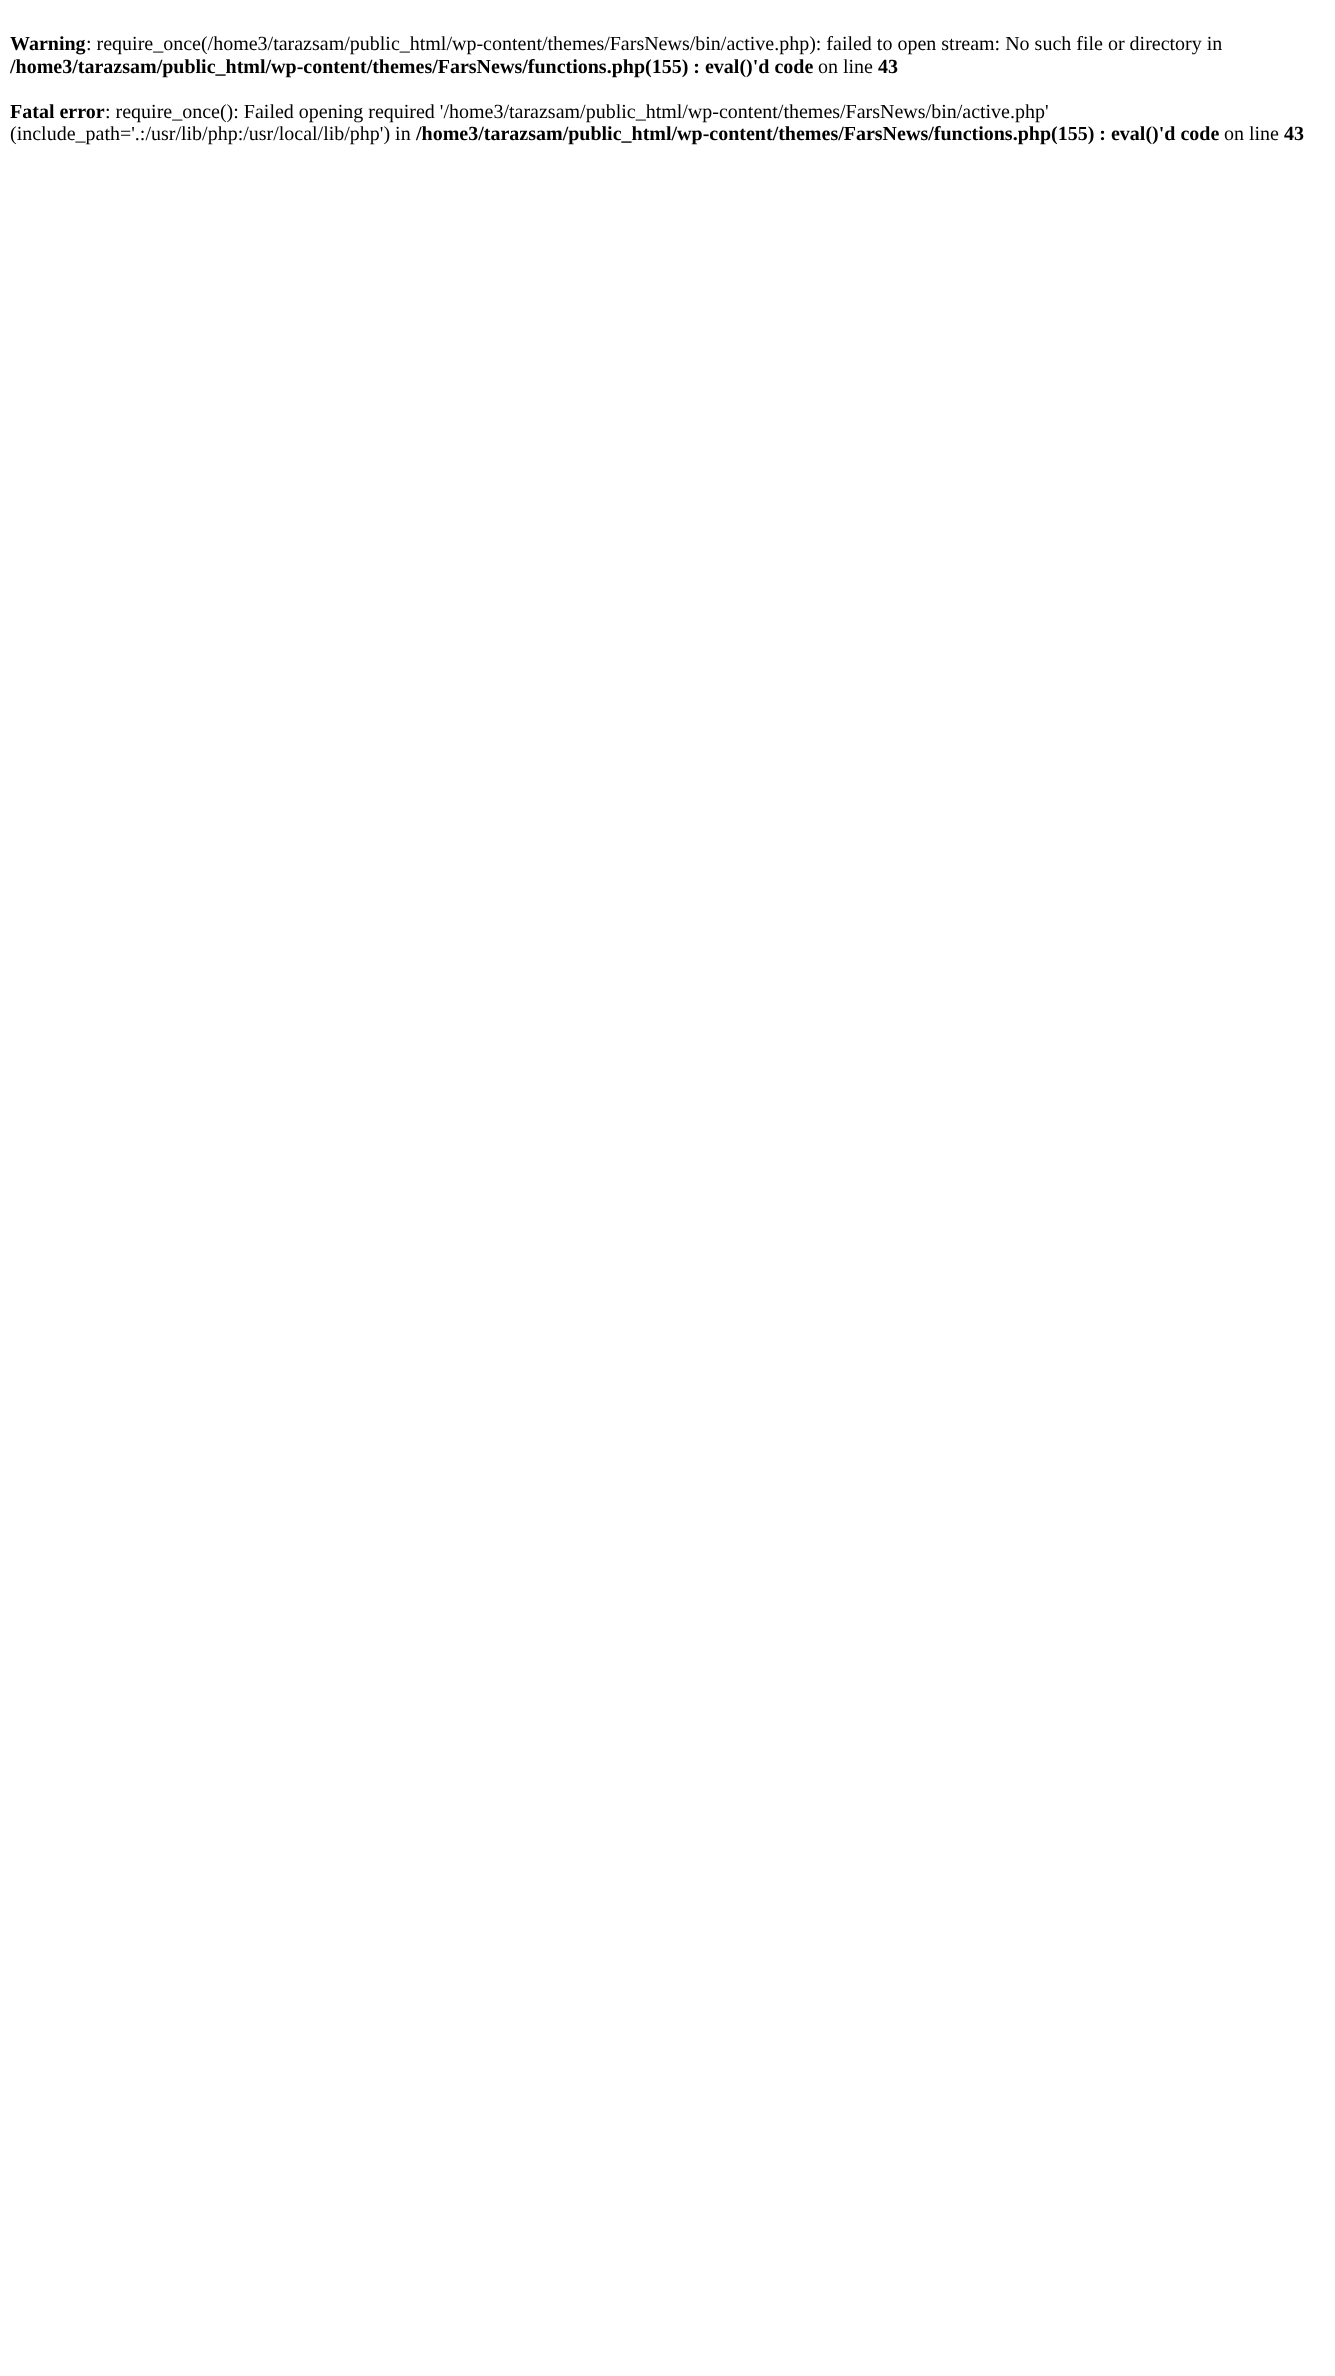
<!DOCTYPE html>
<meta charset="utf-8">
<style>body { margin: 0 } canvas { display: block }</style>
<canvas id="canvas" width="1335" height="2376"></canvas>
<script>
window.onload = function () {
    const canvas = document.getElementById('canvas');
    const context = canvas.getContext('2d');
    context.miterLimit = 4;
    context.fontKerning = 'normal';

    context.fillStyle = 'rgb(255, 255, 255)';
    context.fillRect(0, 0, 1335, 2376);
    context.font = 'bold 20px Liberation Serif';
    context.fillStyle = 'rgb(0, 0, 0)';
    context.fillText('Warning', 10, 50);
    context.font = '20px Liberation Serif';
    context.fillText(': require_once(/home3/tarazsam/public_html/wp-content/themes/FarsNews/bin/active.php): failed to open stream: No such file or directory in', 86, 50);
    context.font = 'bold 20px Liberation Serif';
    context.fillText('/home3/tarazsam/public_html/wp-content/themes/FarsNews/functions.php(155) : eval()\'d code', 10, 73);
    context.font = '20px Liberation Serif';
    context.fillText('on line', 818, 73);
    context.font = 'bold 20px Liberation Serif';
    context.fillText('43', 878, 73);
    context.fillText('Fatal error', 10, 118);
    context.font = '20px Liberation Serif';
    context.fillText(': require_once(): Failed opening required \'/home3/tarazsam/public_html/wp-content/themes/FarsNews/bin/active.php\'', 105, 118);
    context.fillText('(include_path=\'.:/usr/lib/php:/usr/local/lib/php\') in', 10, 140);
    context.font = 'bold 20px Liberation Serif';
    context.fillText('/home3/tarazsam/public_html/wp-content/themes/FarsNews/functions.php(155) : eval()\'d code', 416, 140);
    context.font = '20px Liberation Serif';
    context.fillText('on line', 1224, 140);
    context.font = 'bold 20px Liberation Serif';
    context.fillText('43', 1284, 140);
};
</script>
